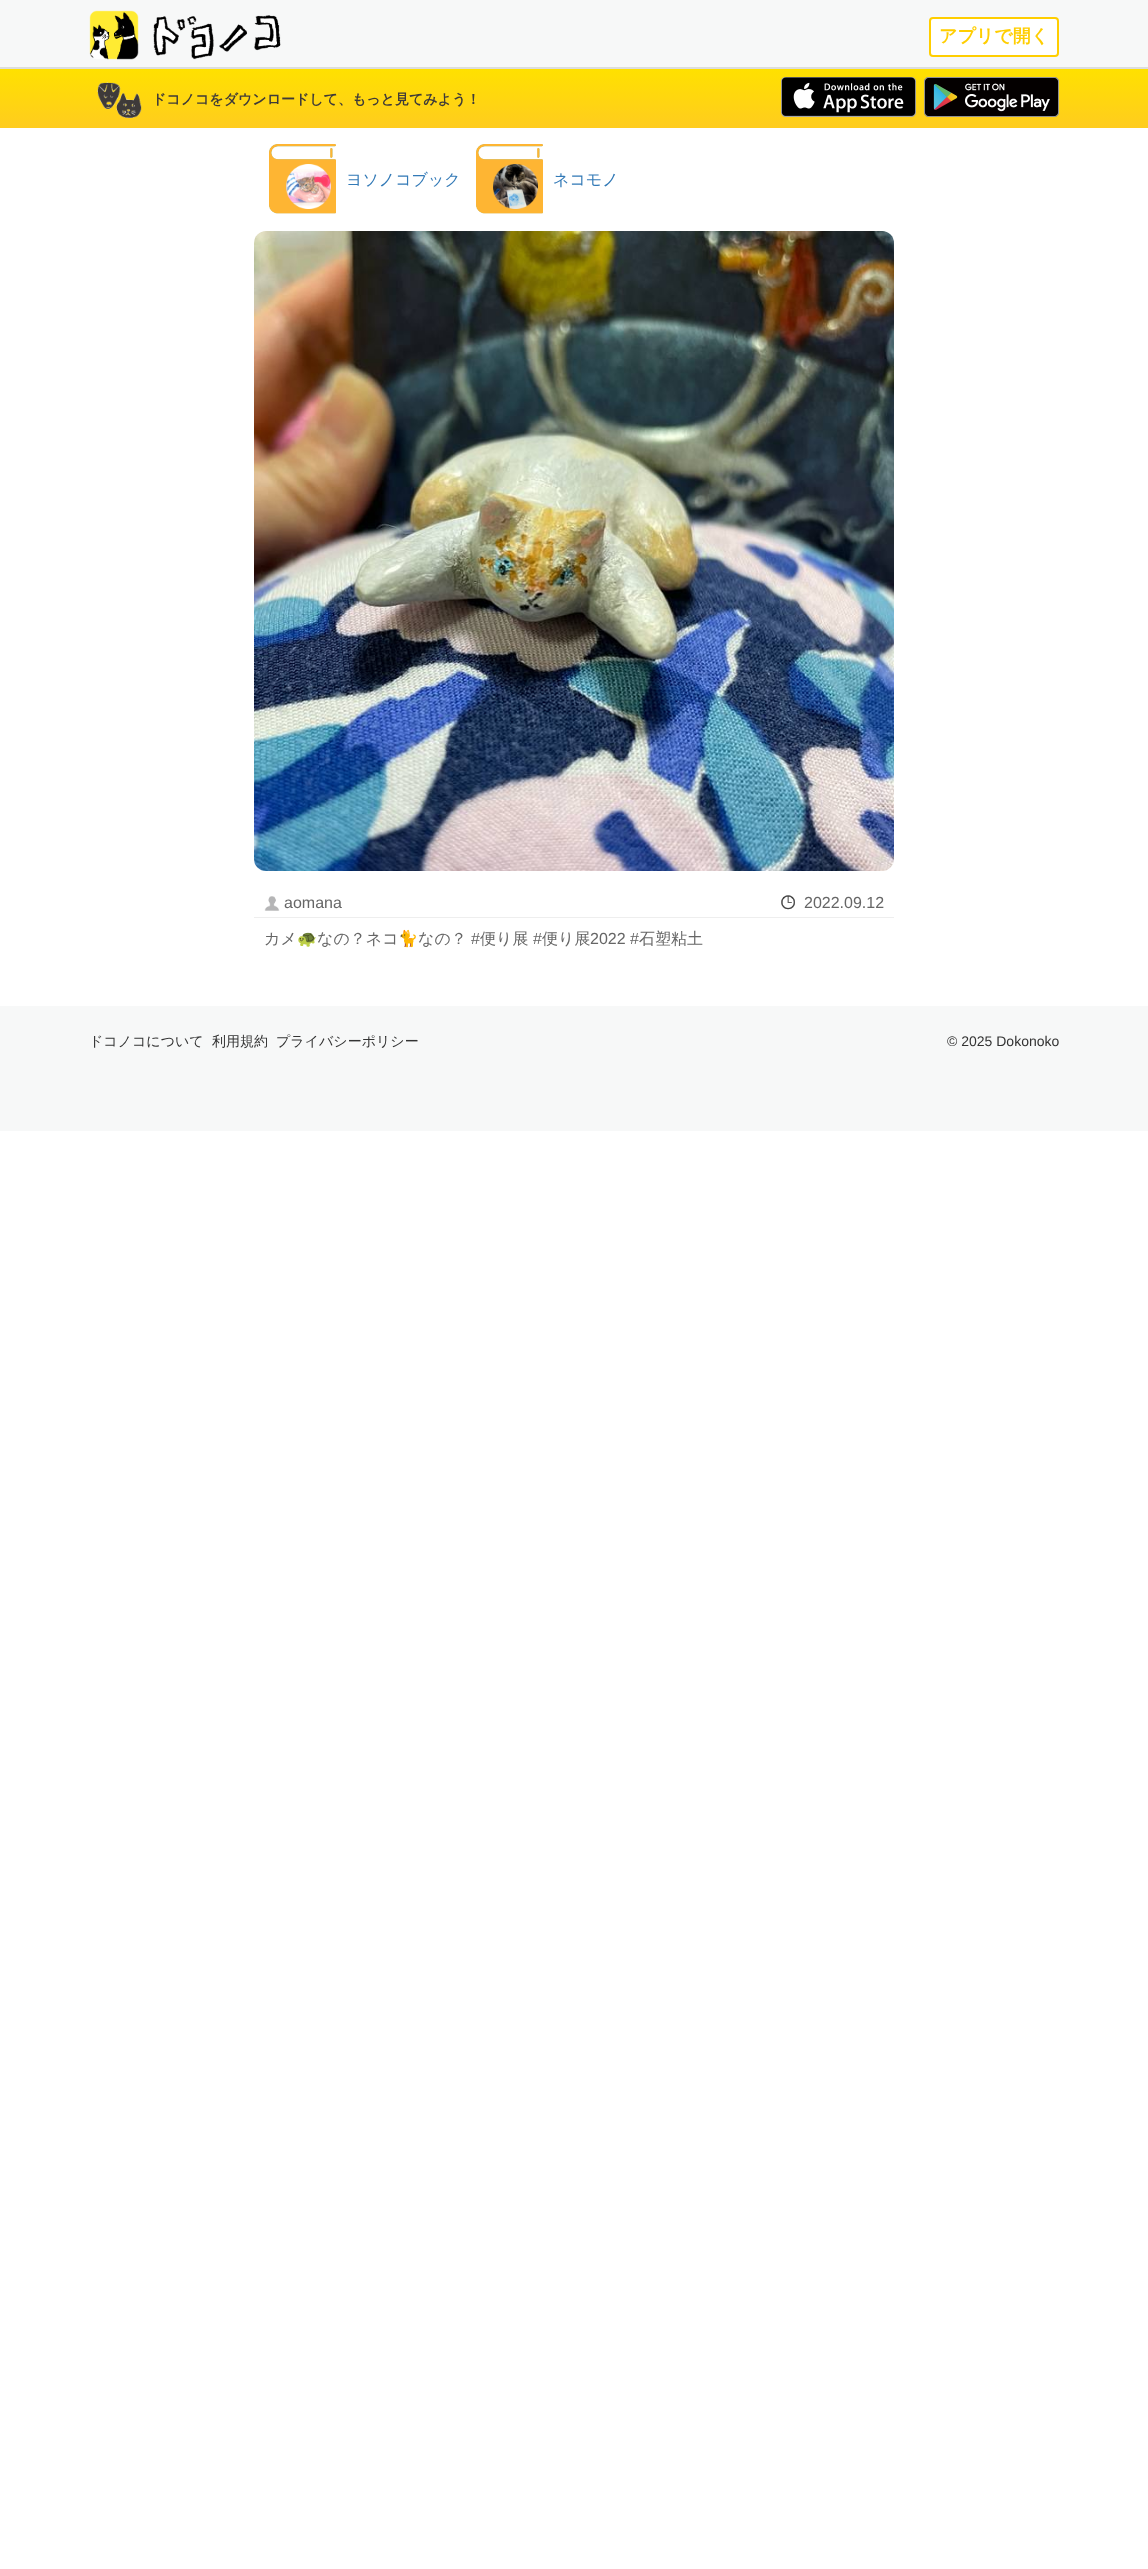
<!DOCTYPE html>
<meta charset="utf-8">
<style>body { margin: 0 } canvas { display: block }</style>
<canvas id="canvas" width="1148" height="2569"></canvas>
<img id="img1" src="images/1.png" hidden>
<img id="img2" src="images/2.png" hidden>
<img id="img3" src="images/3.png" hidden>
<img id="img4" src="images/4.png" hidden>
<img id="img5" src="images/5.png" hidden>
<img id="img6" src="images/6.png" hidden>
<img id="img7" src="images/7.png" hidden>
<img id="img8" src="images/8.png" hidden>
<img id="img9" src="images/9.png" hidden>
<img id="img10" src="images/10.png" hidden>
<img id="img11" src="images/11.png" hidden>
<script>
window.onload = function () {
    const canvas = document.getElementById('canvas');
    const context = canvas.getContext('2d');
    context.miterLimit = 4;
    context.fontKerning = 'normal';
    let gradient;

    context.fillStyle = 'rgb(255, 255, 255)';
    context.fillRect(0, 0, 1148, 2569);
    context.fillStyle = 'rgb(247, 248, 248)';
    context.fillRect(0, 0, 1148, 67);
    context.fillStyle = 'rgb(220, 221, 221)';
    context.fillRect(0, 67, 1148, 2);
    context.drawImage(document.getElementById('img1'), 89, 10, 50, 50);
    context.drawImage(document.getElementById('img2'), 153, 15, 128, 45);
    context.fillStyle = 'rgb(255, 255, 255)';
    context.beginPath();
    context.roundRect(930, 18, 128, 38, 3);
    context.fill();
    context.strokeStyle = 'rgb(255, 206, 0)';
    context.lineWidth = 2;
    context.stroke();
    gradient = context.createLinearGradient(0, 69, 0, 128);
    gradient.addColorStop(0, 'rgb(255, 225, 0)');
    gradient.addColorStop(1, 'rgb(255, 204, 30)');
    context.fillStyle = gradient;
    context.fillRect(0, 69, 1148, 59);
    context.drawImage(document.getElementById('img3'), 97, 82, 45, 36);
    context.drawImage(document.getElementById('img4'), 781, 77, 135, 40);
    context.drawImage(document.getElementById('img5'), 924, 77, 135, 40);
    context.drawImage(document.getElementById('img6'), 269, 144, 67, 70);
    context.drawImage(document.getElementById('img7'), 286, 164, 45, 45);
    context.drawImage(document.getElementById('img6'), 476, 144, 67, 70);
    context.drawImage(document.getElementById('img8'), 493, 164, 45, 45);
    context.drawImage(document.getElementById('img9'), 254, 231, 640, 640);
    context.drawImage(document.getElementById('img10'), 264, 896, 16, 15);
    context.drawImage(document.getElementById('img11'), 781, 895, 14, 15);
    context.fillStyle = 'rgb(238, 238, 238)';
    context.fillRect(254, 917, 640, 1);
    context.fillStyle = 'rgb(247, 248, 248)';
    context.fillRect(0, 1006, 1148, 125);
    context.font = 'bold 18px WenQuanYi Zen Hei';
    context.fillStyle = 'rgb(255, 206, 0)';
    context.fillText('アプリで開く', 939, 42);
    context.font = 'bold 14px WenQuanYi Zen Hei';
    context.fillStyle = 'rgb(62, 58, 57)';
    context.fillText('ドコノコをダウンロードして、もっと見てみよう！', 152, 104);
    context.font = '500 16px WenQuanYi Zen Hei';
    context.fillStyle = 'rgb(51, 122, 183)';
    context.fillText('ヨソノコブック', 346, 185);
    context.fillText('ネコモノ', 553, 185);
    context.font = '16px Liberation Sans';
    context.fillStyle = 'rgb(102, 102, 102)';
    context.fillText('aomana', 284, 908);
    context.fillText('2022.09.12', 804, 908);
    context.font = '500 16px WenQuanYi Zen Hei';
    context.fillText('カメ', 264, 944);
    context.font = '16px Noto Color Emoji';
    context.fillText('🐢', 297, 944);
    context.font = '500 16px WenQuanYi Zen Hei';
    context.fillText('なの？ネコ', 317, 944);
    context.font = '16px Noto Color Emoji';
    context.fillText('🐈', 398, 944);
    context.font = '500 16px WenQuanYi Zen Hei';
    context.fillText('なの？', 418, 944);
    context.font = '16px Liberation Sans';
    context.fillText('#', 471, 944);
    context.font = '500 16px WenQuanYi Zen Hei';
    context.fillText('便り展', 480, 944);
    context.font = '16px Liberation Sans';
    context.fillText('#', 533, 944);
    context.font = '500 16px WenQuanYi Zen Hei';
    context.fillText('便り展', 542, 944);
    context.font = '16px Liberation Sans';
    context.fillText('2022 #', 590, 944);
    context.font = '500 16px WenQuanYi Zen Hei';
    context.fillText('石塑粘土', 639, 944);
    context.font = '500 14px WenQuanYi Zen Hei';
    context.fillStyle = 'rgb(51, 51, 51)';
    context.fillText('ドコノコについて', 89, 1046);
    context.fillText('利用規約', 212, 1046);
    context.fillText('プライバシーポリシー', 276, 1046);
    context.font = '14px Liberation Sans';
    context.fillText('© 2025 Dokonoko', 947, 1046);
};
</script>
